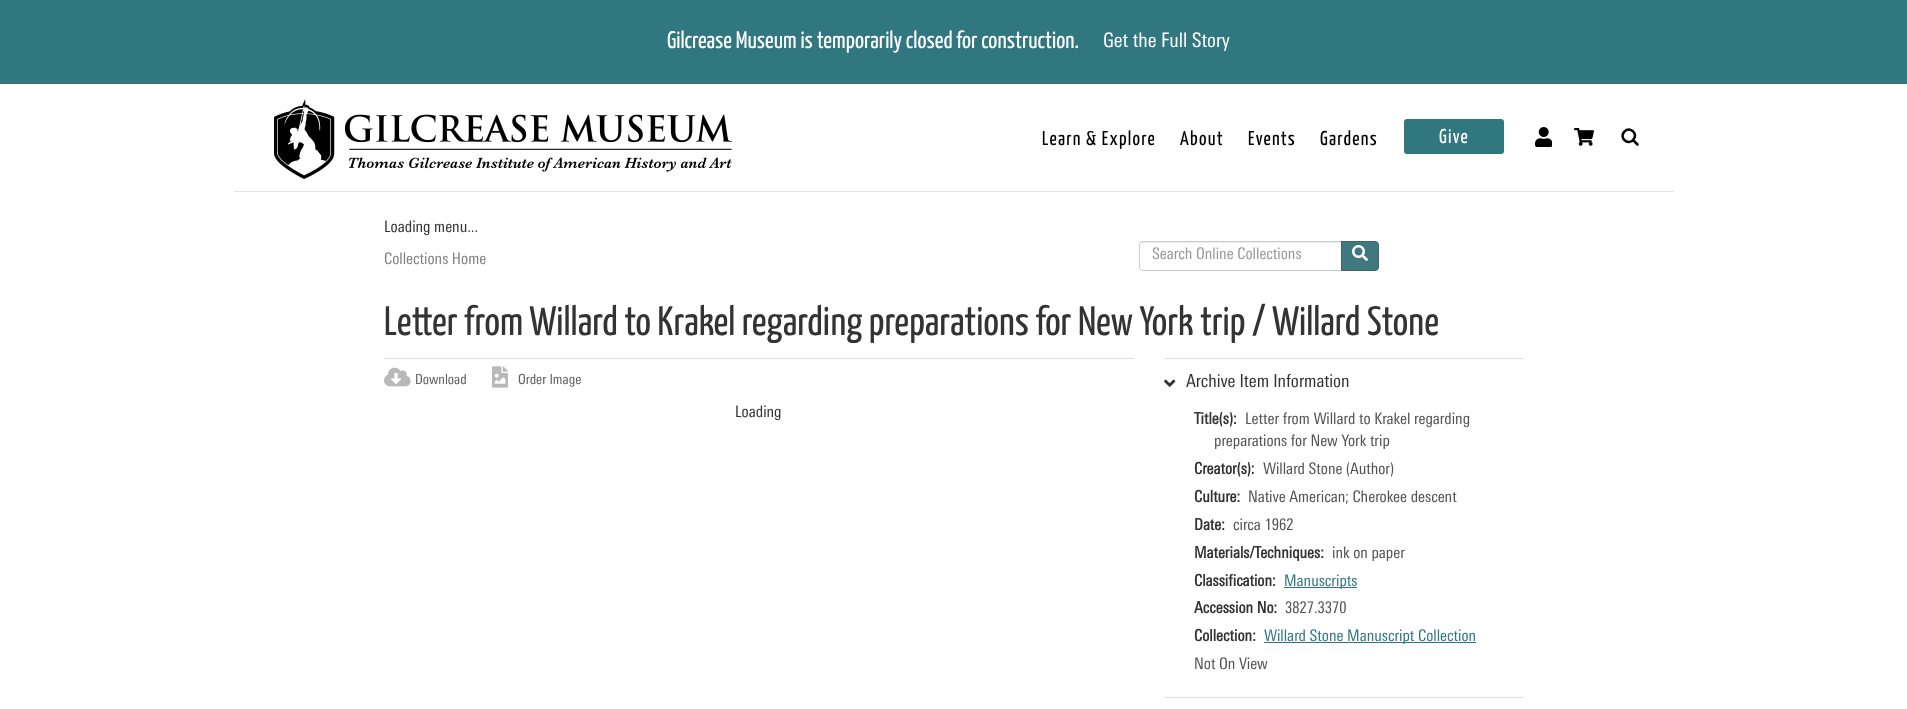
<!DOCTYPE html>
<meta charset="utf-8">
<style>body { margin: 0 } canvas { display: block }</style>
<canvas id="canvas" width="1907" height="709"></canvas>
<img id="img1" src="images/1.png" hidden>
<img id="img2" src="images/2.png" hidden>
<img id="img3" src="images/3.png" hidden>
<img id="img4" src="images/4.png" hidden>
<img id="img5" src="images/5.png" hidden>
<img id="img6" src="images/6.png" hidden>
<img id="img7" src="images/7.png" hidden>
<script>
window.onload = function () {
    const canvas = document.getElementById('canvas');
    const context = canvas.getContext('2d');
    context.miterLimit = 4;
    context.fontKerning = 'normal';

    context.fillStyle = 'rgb(255, 255, 255)';
    context.fillRect(0, 0, 1907, 709);
    context.fillStyle = 'rgb(49, 119, 128)';
    context.fillRect(0, 0, 1907, 84);
    context.fillStyle = 'rgb(229, 229, 229)';
    context.fillRect(234, 191, 1440, 1);
    context.drawImage(document.getElementById('img1'), 274, 99, 458, 80);
    context.fillStyle = 'rgb(49, 119, 128)';
    context.beginPath();
    context.roundRect(1404, 119, 100, 35, 3);
    context.fill();
    context.drawImage(document.getElementById('img2'), 1535, 127, 17, 20);
    context.drawImage(document.getElementById('img3'), 1574, 128, 20, 18);
    context.beginPath();
    context.moveTo(1637.5, 144.5);
    context.lineTo(1633, 140);
    context.moveTo(1633, 140);
    context.bezierCurveTo(1639, 134.5, 1630, 125.5, 1624.5, 131.5);
    context.bezierCurveTo(1618.5, 137, 1627.5, 146, 1633, 140);
    context.closePath();
    context.strokeStyle = 'rgb(0, 0, 0)';
    context.lineWidth = 2.5;
    context.lineCap = 'round';
    context.lineJoin = 'round';
    context.stroke();
    context.fillStyle = 'rgb(236, 236, 236)';
    context.beginPath();
    context.moveTo(1143, 243);
    context.lineTo(1341, 243);
    context.lineTo(1341, 242);
    context.lineTo(1143, 242);
    context.bezierCurveTo(1141, 242, 1140, 244, 1140, 246);
    context.bezierCurveTo(1140, 244, 1141, 243, 1143, 243);
    context.closePath();
    context.fill();
    context.beginPath();
    context.roundRect(1139.5, 241.5, 202, 29, [3.5, 0, 0, 3.5]);
    context.strokeStyle = 'rgb(204, 204, 204)';
    context.lineWidth = 1;
    context.lineJoin = 'miter';
    context.stroke();
    context.fillStyle = 'rgb(65, 119, 126)';
    context.beginPath();
    context.roundRect(1341.5, 241.5, 37, 29, [0, 3.5, 3.5, 0]);
    context.fill();
    context.strokeStyle = 'rgb(56, 103, 109)';
    context.stroke();
    context.drawImage(document.getElementById('img4'), 1352, 245, 16, 16);
    context.fillStyle = 'rgb(221, 221, 221)';
    context.fillRect(384, 358, 750, 1);
    context.drawImage(document.getElementById('img5'), 384, 367, 27, 20);
    context.drawImage(document.getElementById('img6'), 492, 366, 16, 22);
    context.fillRect(1164, 358, 360, 1);
    context.drawImage(document.getElementById('img7'), 1164, 379, 12, 8);
    context.fillStyle = 'rgb(49, 119, 128)';
    context.fillRect(1284, 587, 73, 1);
    context.fillRect(1264, 642, 212, 1);
    context.fillStyle = 'rgb(221, 221, 221)';
    context.fillRect(1164, 697, 360, 1);
    context.font = '24px Yanone Kaffeesatz';
    context.fillStyle = 'rgb(255, 255, 255)';
    context.fillText('Gilcrease Museum is temporarily closed for construction.', 667, 48);
    context.font = '20px "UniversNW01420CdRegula"';
    context.fillText('Get the Full Story', 1103, 47);
    context.letterSpacing = '1.25px';
    context.font = '20px Yanone Kaffeesatz';
    context.fillStyle = 'rgb(0, 0, 0)';
    context.fillText('Learn & Explore', 1042, 145);
    context.fillText('About', 1180, 145);
    context.fillText('Events', 1248, 145);
    context.fillText('Gardens', 1320, 145);
    context.fillStyle = 'rgb(255, 255, 255)';
    context.fillText('Give', 1439, 143);
    context.letterSpacing = '0px';
    context.font = '16px "UniversNW01420CdRegula"';
    context.fillStyle = 'rgb(51, 51, 51)';
    context.fillText('Loading menu...', 384, 232);
    context.fillStyle = 'rgb(130, 130, 130)';
    context.fillText('Collections Home', 384, 264);
    context.fillStyle = 'rgb(153, 153, 153)';
    context.fillText('Search Online Collections', 1152, 259);
    context.font = '41px Yanone Kaffeesatz';
    context.fillStyle = 'rgb(51, 51, 51)';
    context.fillText('Letter from Willard to Krakel regarding preparations for New York trip / Willard Stone', 384, 335);
    context.font = '14px "UniversNW01420CdRegula"';
    context.fillStyle = 'rgb(95, 95, 95)';
    context.fillText('Download', 415, 384);
    context.fillText('Order Image', 518, 384);
    context.font = '16px "UniversNW01420CdRegula"';
    context.fillStyle = 'rgb(51, 51, 51)';
    context.fillText('Loading', 735, 417);
    context.font = '18px "UniversNW01420CdRegula"';
    context.fillText('Archive Item Information', 1186, 387);
    context.font = 'bold 16px "UniversNW01420CdRegula"';
    context.fillText('Title(s):', 1194, 424);
    context.font = '16px "UniversNW01420CdRegula"';
    context.fillStyle = 'rgb(83, 83, 83)';
    context.fillText('Letter from Willard to Krakel regarding', 1245, 424);
    context.fillText('preparations for New York trip', 1214, 446);
    context.font = 'bold 16px "UniversNW01420CdRegula"';
    context.fillStyle = 'rgb(51, 51, 51)';
    context.fillText('Creator(s):', 1194, 474);
    context.font = '16px "UniversNW01420CdRegula"';
    context.fillStyle = 'rgb(83, 83, 83)';
    context.fillText('Willard Stone (Author)', 1263, 474);
    context.font = 'bold 16px "UniversNW01420CdRegula"';
    context.fillStyle = 'rgb(51, 51, 51)';
    context.fillText('Culture:', 1194, 502);
    context.font = '16px "UniversNW01420CdRegula"';
    context.fillStyle = 'rgb(83, 83, 83)';
    context.fillText('Native American; Cherokee descent', 1248, 502);
    context.font = 'bold 16px "UniversNW01420CdRegula"';
    context.fillStyle = 'rgb(51, 51, 51)';
    context.fillText('Date:', 1194, 530);
    context.font = '16px "UniversNW01420CdRegula"';
    context.fillStyle = 'rgb(83, 83, 83)';
    context.fillText('circa 1962', 1233, 530);
    context.font = 'bold 16px "UniversNW01420CdRegula"';
    context.fillStyle = 'rgb(51, 51, 51)';
    context.fillText('Materials/Techniques:', 1194, 558);
    context.font = '16px "UniversNW01420CdRegula"';
    context.fillStyle = 'rgb(83, 83, 83)';
    context.fillText('ink on paper', 1332, 558);
    context.font = 'bold 16px "UniversNW01420CdRegula"';
    context.fillStyle = 'rgb(51, 51, 51)';
    context.fillText('Classification:', 1194, 586);
    context.font = '16px "UniversNW01420CdRegula"';
    context.fillStyle = 'rgb(49, 119, 128)';
    context.fillText('Manuscripts', 1284, 586);
    context.font = 'bold 16px "UniversNW01420CdRegula"';
    context.fillStyle = 'rgb(51, 51, 51)';
    context.fillText('Accession No:', 1194, 613);
    context.font = '16px "UniversNW01420CdRegula"';
    context.fillStyle = 'rgb(83, 83, 83)';
    context.fillText('3827.3370', 1285, 613);
    context.font = 'bold 16px "UniversNW01420CdRegula"';
    context.fillStyle = 'rgb(51, 51, 51)';
    context.fillText('Collection:', 1194, 641);
    context.font = '16px "UniversNW01420CdRegula"';
    context.fillStyle = 'rgb(49, 119, 128)';
    context.fillText('Willard Stone Manuscript Collection', 1264, 641);
    context.fillStyle = 'rgb(83, 83, 83)';
    context.fillText('Not On View', 1194, 669);
};
</script>
